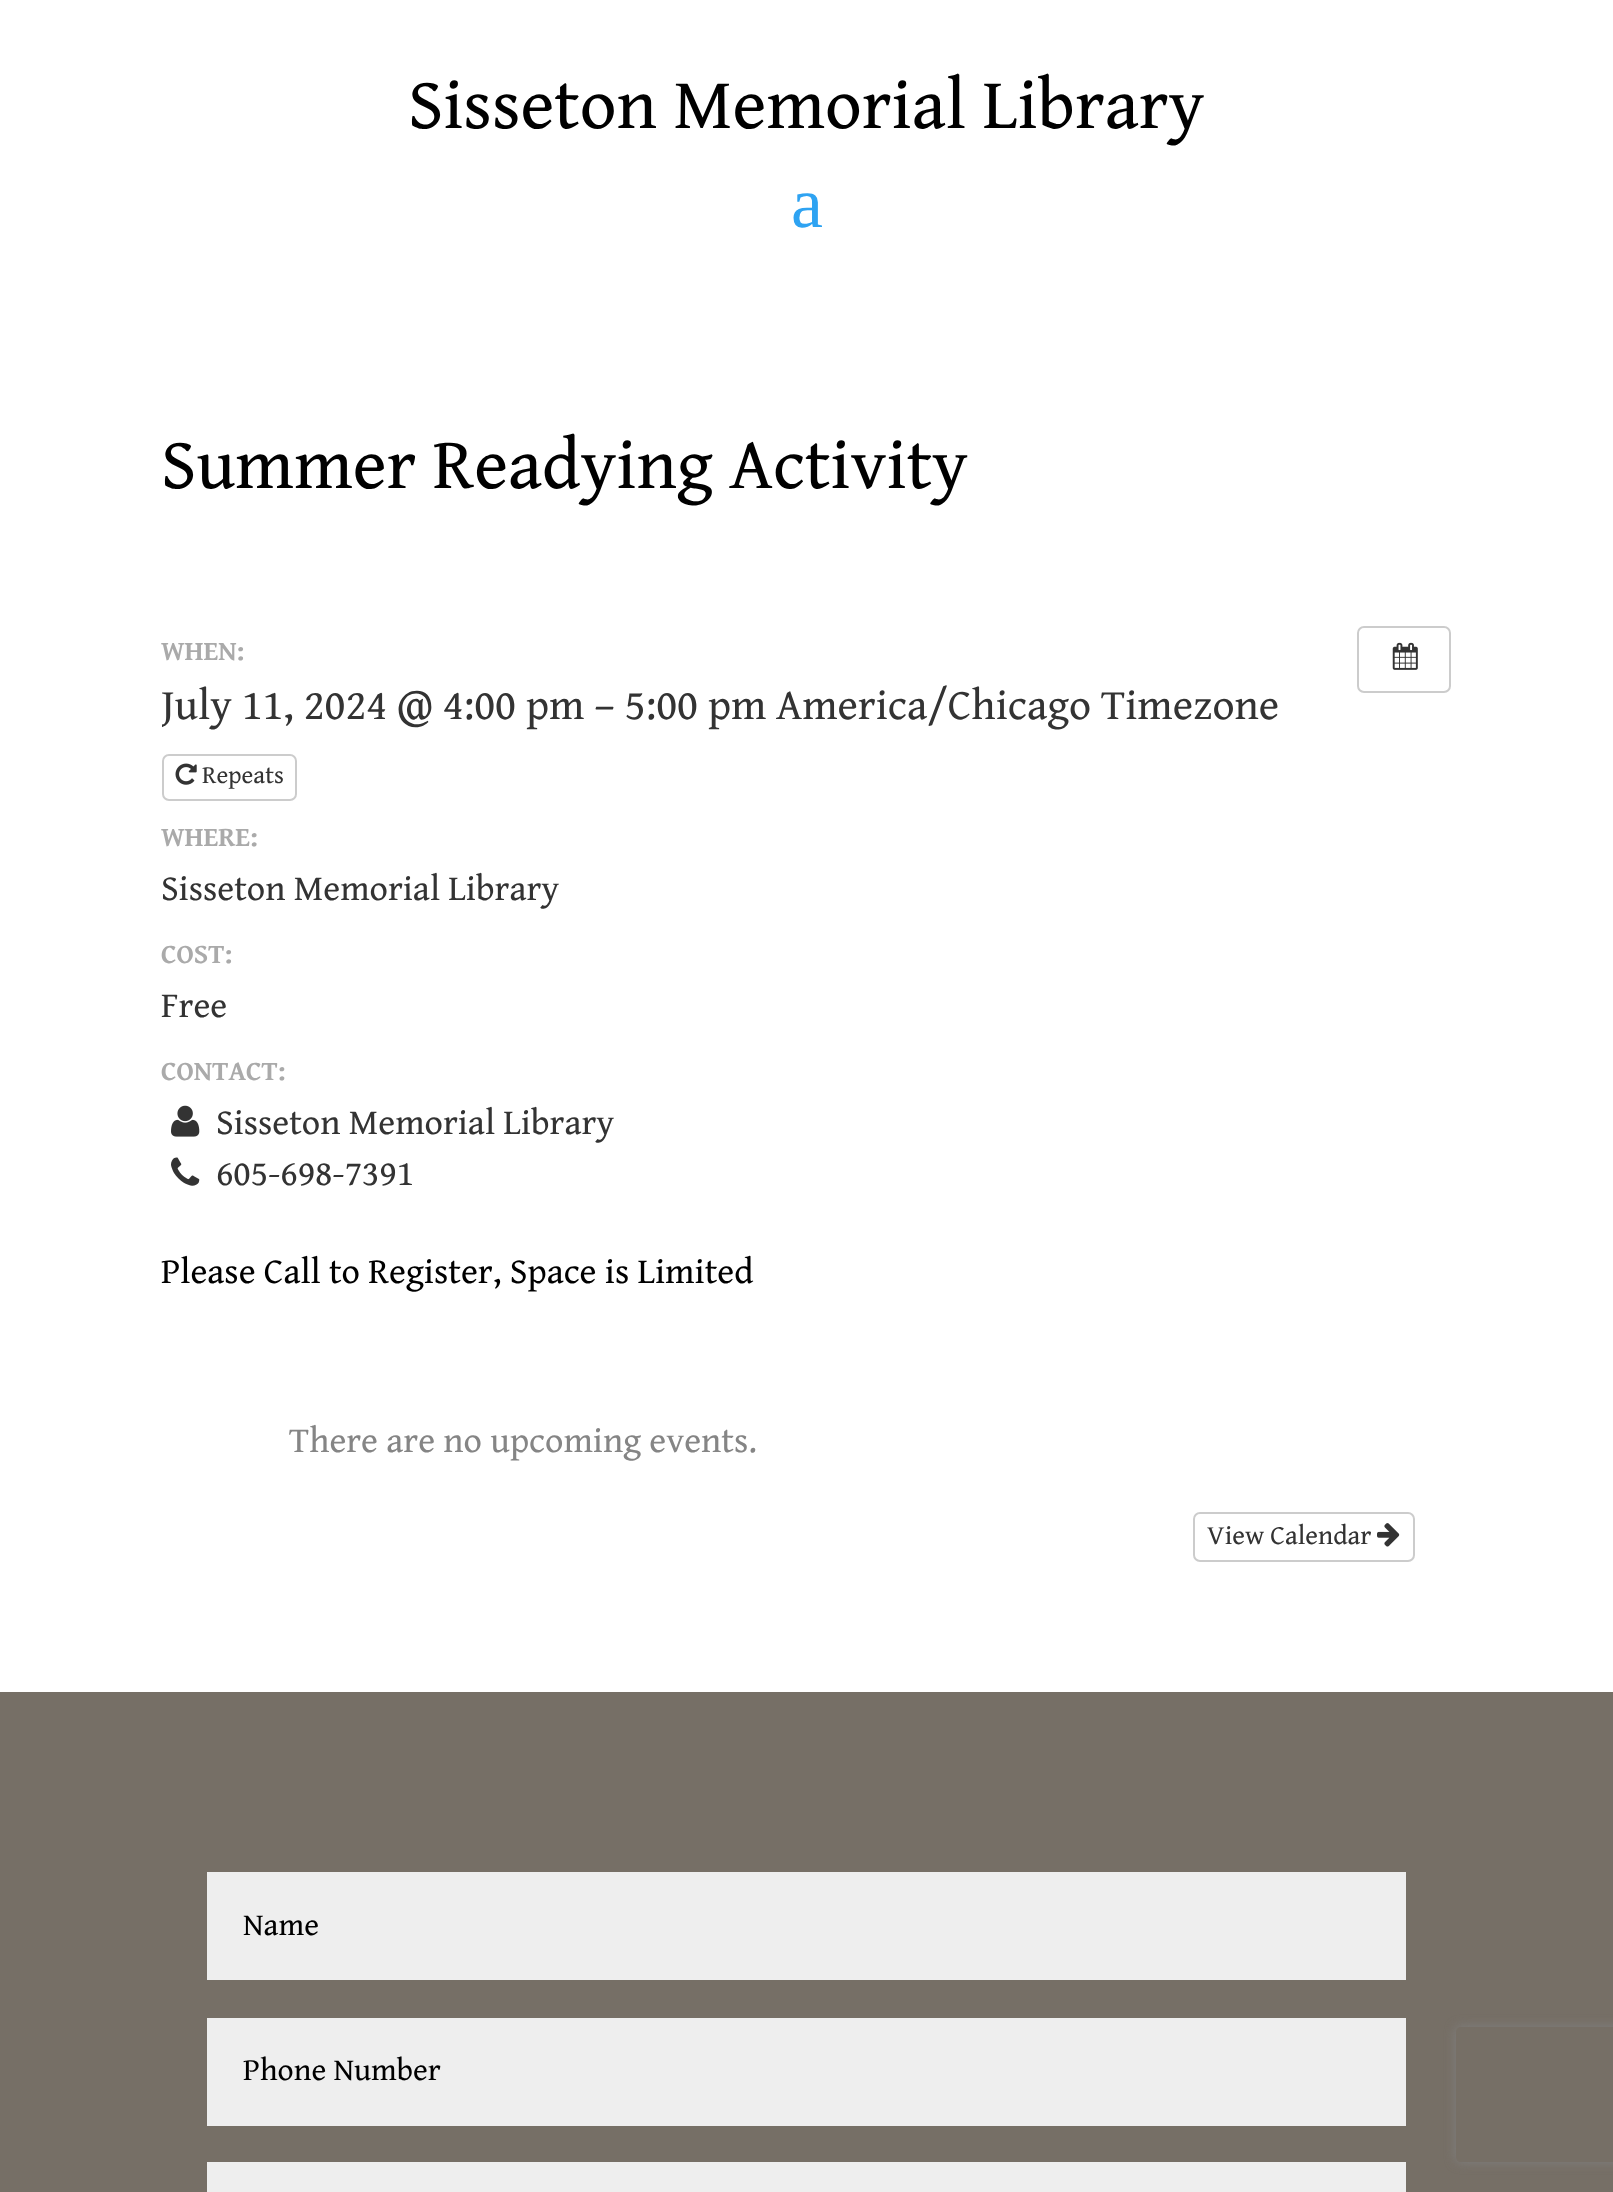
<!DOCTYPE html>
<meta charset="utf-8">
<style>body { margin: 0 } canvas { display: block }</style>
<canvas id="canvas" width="1613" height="2192"></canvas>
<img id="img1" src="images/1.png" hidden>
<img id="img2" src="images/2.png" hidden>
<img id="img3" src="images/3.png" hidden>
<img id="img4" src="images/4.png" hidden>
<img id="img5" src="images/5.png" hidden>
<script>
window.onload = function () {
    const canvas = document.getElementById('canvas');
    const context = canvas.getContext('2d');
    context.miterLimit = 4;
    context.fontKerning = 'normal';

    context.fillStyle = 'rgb(255, 255, 255)';
    context.fillRect(0, 0, 1613, 2192);
    context.beginPath();
    context.roundRect(163, 755, 133, 45, 6);
    context.strokeStyle = 'rgb(204, 204, 204)';
    context.lineWidth = 2;
    context.stroke();
    context.drawImage(document.getElementById('img1'), 175, 763, 22, 22);
    context.drawImage(document.getElementById('img2'), 171, 1105, 29, 32);
    context.drawImage(document.getElementById('img3'), 171, 1157, 29, 29);
    context.beginPath();
    context.roundRect(1358, 627, 92, 65, 6);
    context.stroke();
    context.drawImage(document.getElementById('img4'), 1392, 642, 26, 28);
    context.beginPath();
    context.roundRect(1194, 1513, 220, 48, 6);
    context.stroke();
    context.drawImage(document.getElementById('img5'), 1377, 1523, 23, 24);
    context.fillStyle = 'rgb(118, 111, 102)';
    context.fillRect(0, 1692, 1613, 500);
    context.fillStyle = 'rgb(238, 238, 238)';
    context.fillRect(207, 1872, 1199, 108);
    context.fillRect(207, 2018, 1199, 108);
    context.fillRect(207, 2162, 1199, 30);
    context.save();
    context.beginPath();
    context.moveTo(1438, 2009);
    context.lineTo(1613, 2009);
    context.lineTo(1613, 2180);
    context.lineTo(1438, 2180);
    context.closePath();
    context.moveTo(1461, 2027);
    context.lineTo(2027, 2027);
    context.bezierCurveTo(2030, 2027, 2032, 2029, 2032, 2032);
    context.lineTo(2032, 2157);
    context.bezierCurveTo(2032, 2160, 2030, 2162, 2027, 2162);
    context.lineTo(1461, 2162);
    context.bezierCurveTo(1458, 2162, 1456, 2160, 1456, 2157);
    context.lineTo(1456, 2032);
    context.bezierCurveTo(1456, 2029, 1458, 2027, 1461, 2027);
    context.closePath();
    context.clip('evenodd');
    context.fillStyle = 'rgb(128, 128, 128)';
    context.filter = 'blur(5.5px)';
    context.beginPath();
    context.roundRect(1456, 2027, 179, 135, 5);
    context.fill();
    context.filter = 'none';
    context.restore();
    context.font = '72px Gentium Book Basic';
    context.fillStyle = 'rgb(0, 0, 0)';
    context.fillText('Sisseton Memorial Library', 408, 128);
    context.font = '72px Liberation Serif';
    context.fillStyle = 'rgb(46, 163, 242)';
    context.fillText('a', 791, 227);
    context.font = '72px Gentium Book Basic';
    context.fillStyle = 'rgb(0, 0, 0)';
    context.fillText('Summer Readying Activity', 161, 488);
    context.font = 'bold 27.5px Gentium Book Basic';
    context.fillStyle = 'rgb(170, 170, 170)';
    context.fillText('WHEN:', 161, 660);
    context.save();
    context.beginPath();
    context.rect(162, 626, 1172, 587);
    context.clip();
    context.font = '43.25px Gentium Book Basic';
    context.fillStyle = 'rgb(51, 51, 51)';
    context.fillText('July 11, 2024 @ 4:00 pm – 5:00 pm', 161, 719);
    context.restore();
    context.font = '43.25px Gentium Book Basic';
    context.fillStyle = 'rgb(51, 51, 51)';
    context.fillText('America/Chicago Timezone', 776, 719);
    context.font = '25px Gentium Book Basic';
    context.fillText('Repeats', 202, 783);
    context.font = 'bold 27.5px Gentium Book Basic';
    context.fillStyle = 'rgb(170, 170, 170)';
    context.fillText('WHERE:', 161, 846);
    context.font = '36px Gentium Book Basic';
    context.fillStyle = 'rgb(51, 51, 51)';
    context.fillText('Sisseton Memorial Library', 161, 900);
    context.font = 'bold 27.5px Gentium Book Basic';
    context.fillStyle = 'rgb(170, 170, 170)';
    context.fillText('COST:', 161, 963);
    context.font = '36px Gentium Book Basic';
    context.fillStyle = 'rgb(51, 51, 51)';
    context.fillText('Free', 161, 1017);
    context.font = 'bold 27.5px Gentium Book Basic';
    context.fillStyle = 'rgb(170, 170, 170)';
    context.fillText('CONTACT:', 161, 1080);
    context.font = '36px Gentium Book Basic';
    context.fillStyle = 'rgb(51, 51, 51)';
    context.fillText('Sisseton Memorial Library', 216, 1134);
    context.fillText('605-698-7391', 216, 1185);
    context.fillStyle = 'rgb(0, 0, 0)';
    context.fillText('Please Call to Register, Space is Limited', 161, 1283);
    context.fillStyle = 'rgb(133, 133, 133)';
    context.fillText('There are no upcoming events.', 289, 1452);
    context.font = '27px Gentium Book Basic';
    context.fillStyle = 'rgb(51, 51, 51)';
    context.fillText('View Calendar', 1207, 1544);
    context.font = '31.5px Gentium Book Basic';
    context.fillStyle = 'rgb(0, 0, 0)';
    context.fillText('Name', 243, 1935);
    context.fillText('Phone Number', 243, 2080);
};
</script>
